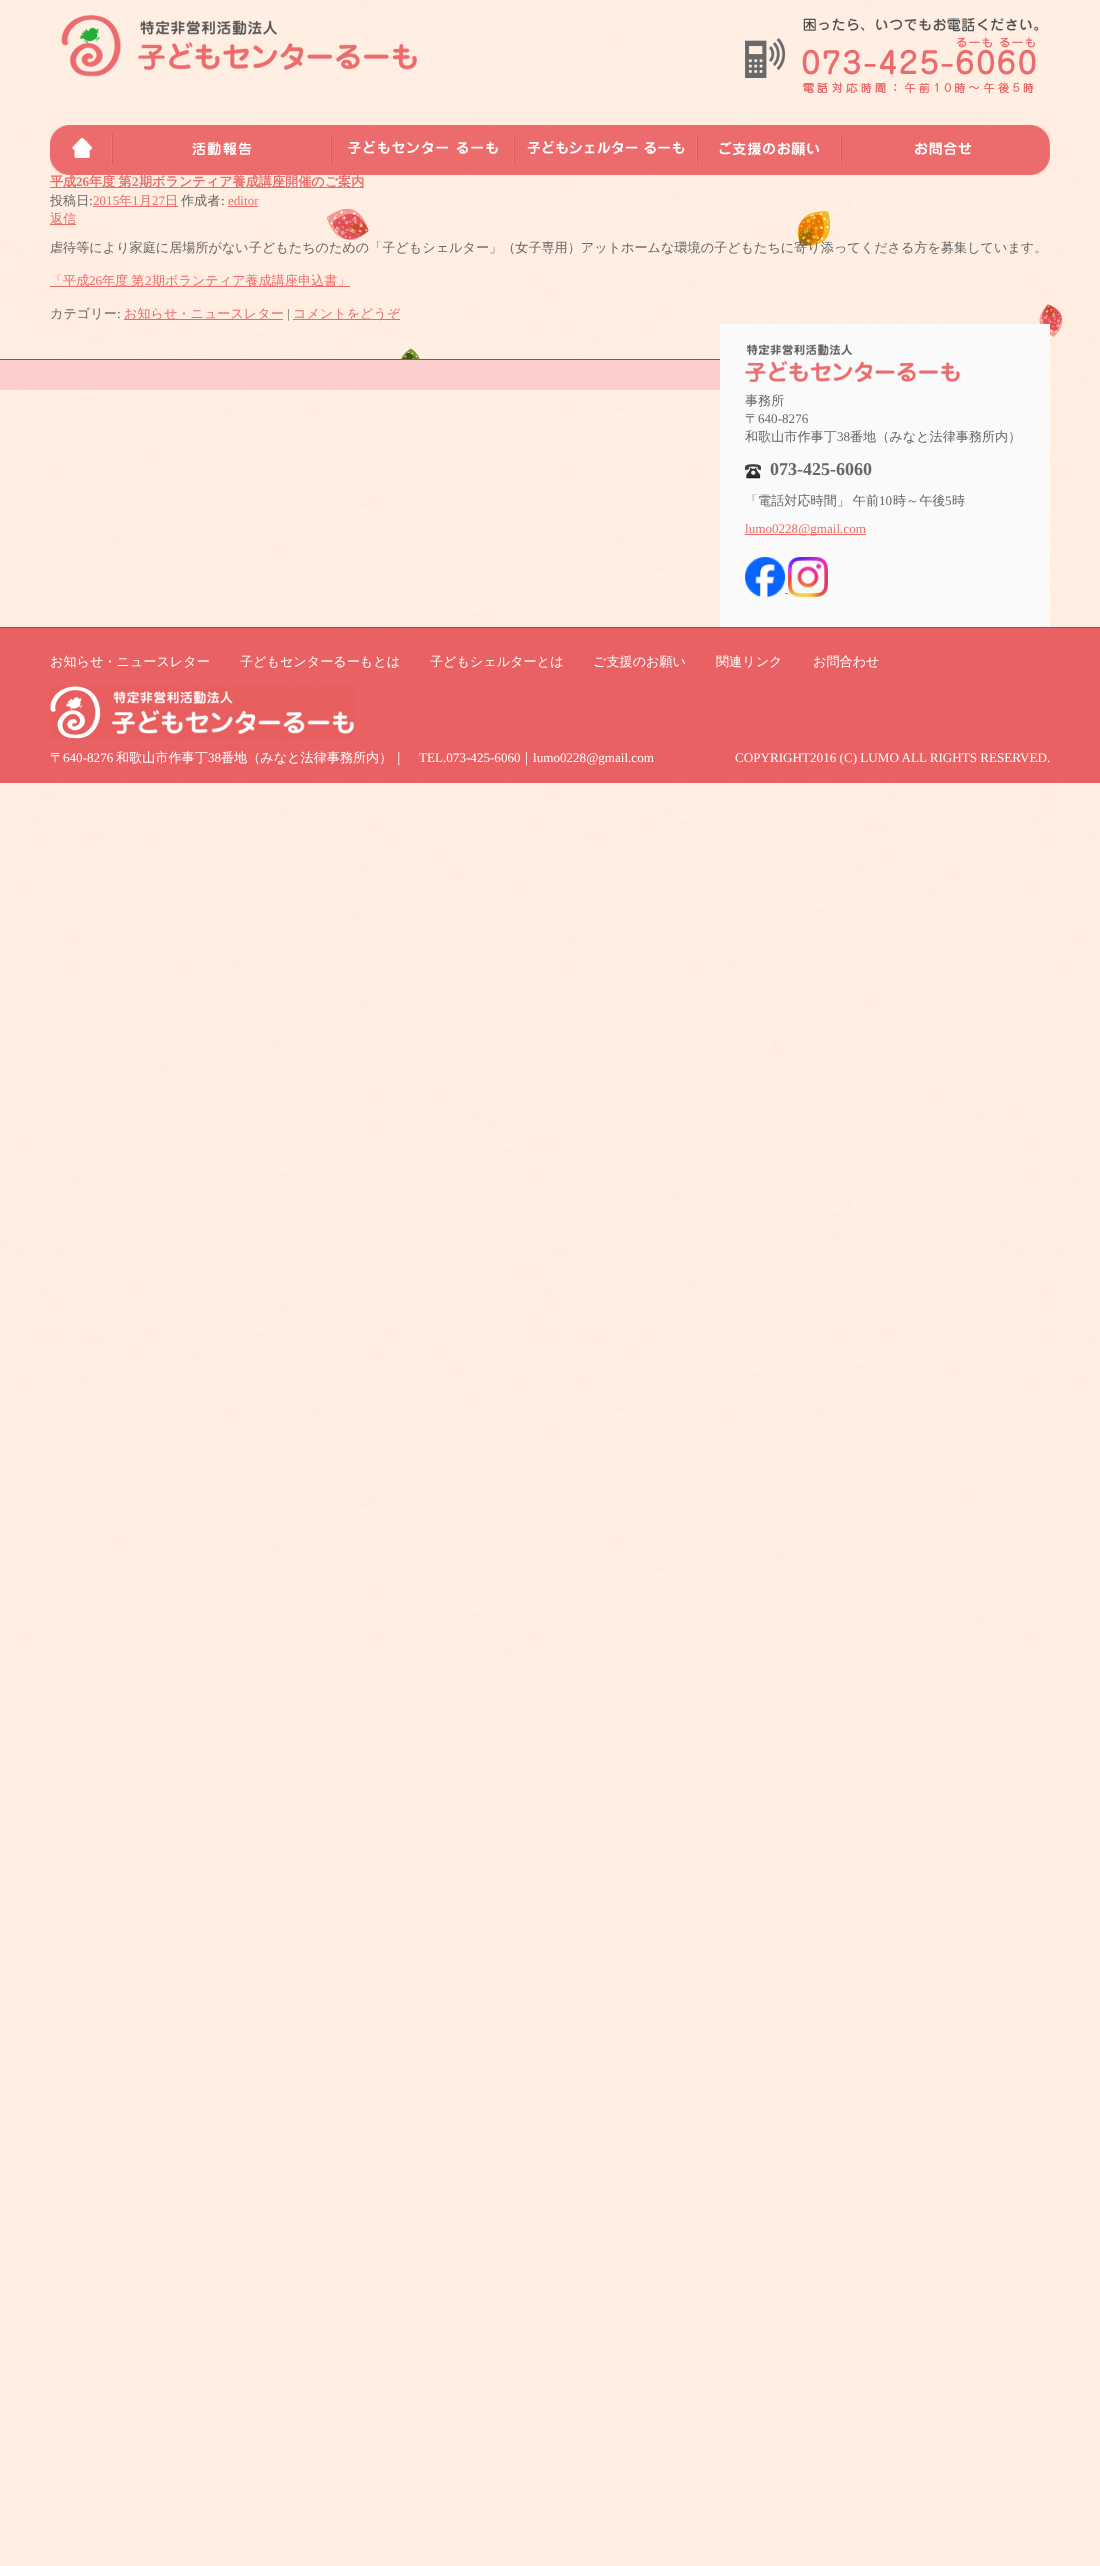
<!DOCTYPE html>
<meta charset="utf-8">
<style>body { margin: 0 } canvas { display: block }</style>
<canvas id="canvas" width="1100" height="2566"></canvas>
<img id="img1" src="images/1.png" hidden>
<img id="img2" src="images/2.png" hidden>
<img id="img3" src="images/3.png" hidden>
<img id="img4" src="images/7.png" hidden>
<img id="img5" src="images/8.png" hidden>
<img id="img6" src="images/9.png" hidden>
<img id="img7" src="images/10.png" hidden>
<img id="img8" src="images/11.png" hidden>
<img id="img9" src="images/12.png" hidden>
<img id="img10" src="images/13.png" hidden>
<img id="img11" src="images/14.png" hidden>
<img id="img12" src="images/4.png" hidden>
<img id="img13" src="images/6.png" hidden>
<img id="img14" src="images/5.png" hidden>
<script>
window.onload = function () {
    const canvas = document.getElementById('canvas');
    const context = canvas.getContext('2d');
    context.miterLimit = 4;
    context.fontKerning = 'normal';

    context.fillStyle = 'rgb(255, 238, 226)';
    context.fillRect(0, 0, 1100, 2566);
    context.drawImage(document.getElementById('img1'), 0, 0, 1099, 1660);
    context.drawImage(document.getElementById('img2'), 60, 15, 357, 63);
    context.drawImage(document.getElementById('img3'), 745, 18, 294, 76);
    context.drawImage(document.getElementById('img4'), 515, 125, 183, 50);
    context.drawImage(document.getElementById('img5'), 698, 125, 144, 50);
    context.drawImage(document.getElementById('img6'), 842, 125, 208, 50);
    context.fillStyle = 'rgb(236, 108, 107)';
    context.fillRect(50, 187, 314, 1);
    context.fillRect(93, 206, 85, 1);
    context.fillRect(228, 206, 30, 1);
    context.fillRect(50, 224, 26, 1);
    context.fillRect(50, 286, 300, 1);
    context.fillRect(124, 319, 159, 1);
    context.fillRect(293, 319, 107, 1);
    context.fillStyle = 'rgb(250, 250, 250)';
    context.fillRect(720, 324, 330, 303);
    context.drawImage(document.getElementById('img7'), 745, 344, 215, 38);
    context.drawImage(document.getElementById('img8'), 745, 464, 16, 15);
    context.fillStyle = 'rgb(236, 108, 107)';
    context.fillRect(745, 534, 121, 1);
    context.drawImage(document.getElementById('img9'), 745, 557, 40, 40);
    context.fillRect(785, 593, 3, 1);
    context.drawImage(document.getElementById('img10'), 788, 557, 40, 40);
    context.fillStyle = 'rgb(252, 206, 204)';
    context.fillRect(0, 360, 720, 30);
    context.fillStyle = 'rgb(209, 58, 59)';
    context.fillRect(0, 359, 720, 1);
    context.fillStyle = 'rgb(233, 97, 98)';
    context.fillRect(0, 628, 1100, 155);
    context.fillStyle = 'rgb(209, 58, 59)';
    context.fillRect(0, 627, 1100, 1);
    context.drawImage(document.getElementById('img11'), 50, 686, 304, 53);
    context.font = 'bold 13.12px WenQuanYi Zen Hei';
    context.fillStyle = 'rgb(236, 108, 107)';
    context.fillText('平成', 50, 186);
    context.font = 'bold 13.12px Liberation Serif';
    context.fillText('26', 76, 186);
    context.wordSpacing = '-1px';
    context.font = 'bold 13.12px WenQuanYi Zen Hei';
    context.fillText('年度 第', 89, 186);
    context.drawImage(document.getElementById('img12'), 50, 125, 63, 50);
    context.wordSpacing = '0px';
    context.font = 'bold 13.12px Liberation Serif';
    context.fillText('2', 132, 186);
    context.font = 'bold 13.12px WenQuanYi Zen Hei';
    context.fillText('期ボランティア養成講座開催のご案内', 139, 186);
    context.drawImage(document.getElementById('img13'), 332, 125, 183, 50);
    context.drawImage(document.getElementById('img14'), 113, 125, 219, 50);
    context.font = '500 13.12px WenQuanYi Zen Hei';
    context.fillStyle = 'rgb(102, 102, 102)';
    context.fillText('投稿日', 50, 205);
    context.font = '13.12px Liberation Serif';
    context.fillText(':', 89, 205);
    context.fillStyle = 'rgb(236, 108, 107)';
    context.fillText('2015', 93, 205);
    context.font = '500 13.12px WenQuanYi Zen Hei';
    context.fillText('年', 119, 205);
    context.font = '13.12px Liberation Serif';
    context.fillText('1', 132, 205);
    context.font = '500 13.12px WenQuanYi Zen Hei';
    context.fillText('月', 139, 205);
    context.font = '13.12px Liberation Serif';
    context.fillText('27', 152, 205);
    context.font = '500 13.12px WenQuanYi Zen Hei';
    context.fillText('日', 165, 205);
    context.fillStyle = 'rgb(102, 102, 102)';
    context.fillText('作成者', 181, 205);
    context.font = '13.12px Liberation Serif';
    context.fillText(':', 221, 205);
    context.fillStyle = 'rgb(236, 108, 107)';
    context.fillText('editor', 228, 205);
    context.font = '500 13.12px WenQuanYi Zen Hei';
    context.fillText('返信', 50, 223);
    context.fillStyle = 'rgb(102, 102, 102)';
    context.fillText('虐待等により家庭に居場所がない子どもたちのための「子どもシェルター」（女子専用）アットホームな環境の子どもたちに寄り添ってくださる方を募集しています。', 50, 252);
    context.fillStyle = 'rgb(236, 108, 107)';
    context.fillText('「平成', 50, 285);
    context.font = '13.12px Liberation Serif';
    context.fillText('26', 89, 285);
    context.wordSpacing = '-1px';
    context.font = '500 13.12px WenQuanYi Zen Hei';
    context.fillText('年度 第', 102, 285);
    context.wordSpacing = '0px';
    context.font = '13.12px Liberation Serif';
    context.fillText('2', 145, 285);
    context.font = '500 13.12px WenQuanYi Zen Hei';
    context.fillText('期ボランティア養成講座申込書」', 152, 285);
    context.fillStyle = 'rgb(102, 102, 102)';
    context.fillText('カテゴリー', 50, 318);
    context.font = '13.12px Liberation Serif';
    context.fillText(':', 117, 318);
    context.font = '500 13.12px WenQuanYi Zen Hei';
    context.fillStyle = 'rgb(236, 108, 107)';
    context.fillText('お知らせ・ニュースレター', 124, 318);
    context.font = '13.12px Liberation Serif';
    context.fillStyle = 'rgb(102, 102, 102)';
    context.fillText('|', 287, 318);
    context.font = '500 13.12px WenQuanYi Zen Hei';
    context.fillStyle = 'rgb(236, 108, 107)';
    context.fillText('コメントをどうぞ', 293, 318);
    context.fillStyle = 'rgb(102, 102, 102)';
    context.fillText('事務所', 745, 405);
    context.fillText('〒', 745, 423);
    context.font = '13.12px Liberation Serif';
    context.fillText('640-8276', 758, 423);
    context.font = '500 13.12px WenQuanYi Zen Hei';
    context.fillText('和歌山市作事丁', 745, 441);
    context.font = '13.12px Liberation Serif';
    context.fillText('38', 837, 441);
    context.font = '500 13.12px WenQuanYi Zen Hei';
    context.fillText('番地（みなと法律事務所内）', 850, 441);
    context.font = 'bold 18px Liberation Serif';
    context.fillText('073-425-6060', 770, 475);
    context.wordSpacing = '-1px';
    context.font = '500 13.12px WenQuanYi Zen Hei';
    context.fillText('「電話対応時間」 午前', 745, 505);
    context.wordSpacing = '0px';
    context.font = '13.12px Liberation Serif';
    context.fillText('10', 879, 505);
    context.font = '500 13.12px WenQuanYi Zen Hei';
    context.fillText('時～午後', 893, 505);
    context.font = '13.12px Liberation Serif';
    context.fillText('5', 945, 505);
    context.font = '500 13.12px WenQuanYi Zen Hei';
    context.fillText('時', 952, 505);
    context.font = '13.12px Liberation Serif';
    context.fillStyle = 'rgb(236, 108, 107)';
    context.fillText('lumo0228@gmail.com', 745, 533);
    context.font = '500 13.12px WenQuanYi Zen Hei';
    context.fillStyle = 'rgb(255, 255, 255)';
    context.fillText('お知らせ・ニュースレター', 50, 666);
    context.fillText('子どもセンターるーもとは', 240, 666);
    context.fillText('子どもシェルターとは', 430, 666);
    context.fillText('ご支援のお願い', 593, 666);
    context.fillText('関連リンク', 716, 666);
    context.fillText('お問合わせ', 813, 666);
    context.fillText('〒', 50, 762);
    context.font = '13.12px Liberation Serif';
    context.fillText('640-8276', 63, 762);
    context.font = '500 13.12px WenQuanYi Zen Hei';
    context.fillText('和歌山市作事丁', 116, 762);
    context.font = '13.12px Liberation Serif';
    context.fillText('38', 208, 762);
    context.font = '500 13.12px WenQuanYi Zen Hei';
    context.fillText('番地（みなと法律事務所内）｜', 221, 762);
    context.font = '13.12px Liberation Serif';
    context.fillText('TEL.073-425-6060', 419, 762);
    context.font = '500 13.12px WenQuanYi Zen Hei';
    context.fillText('｜', 520, 762);
    context.font = '13.12px Liberation Serif';
    context.fillText('lumo0228@gmail.com', 533, 762);
    context.fillText('COPYRIGHT2016 (C) LUMO ALL RIGHTS RESERVED.', 735, 762);
};
</script>
